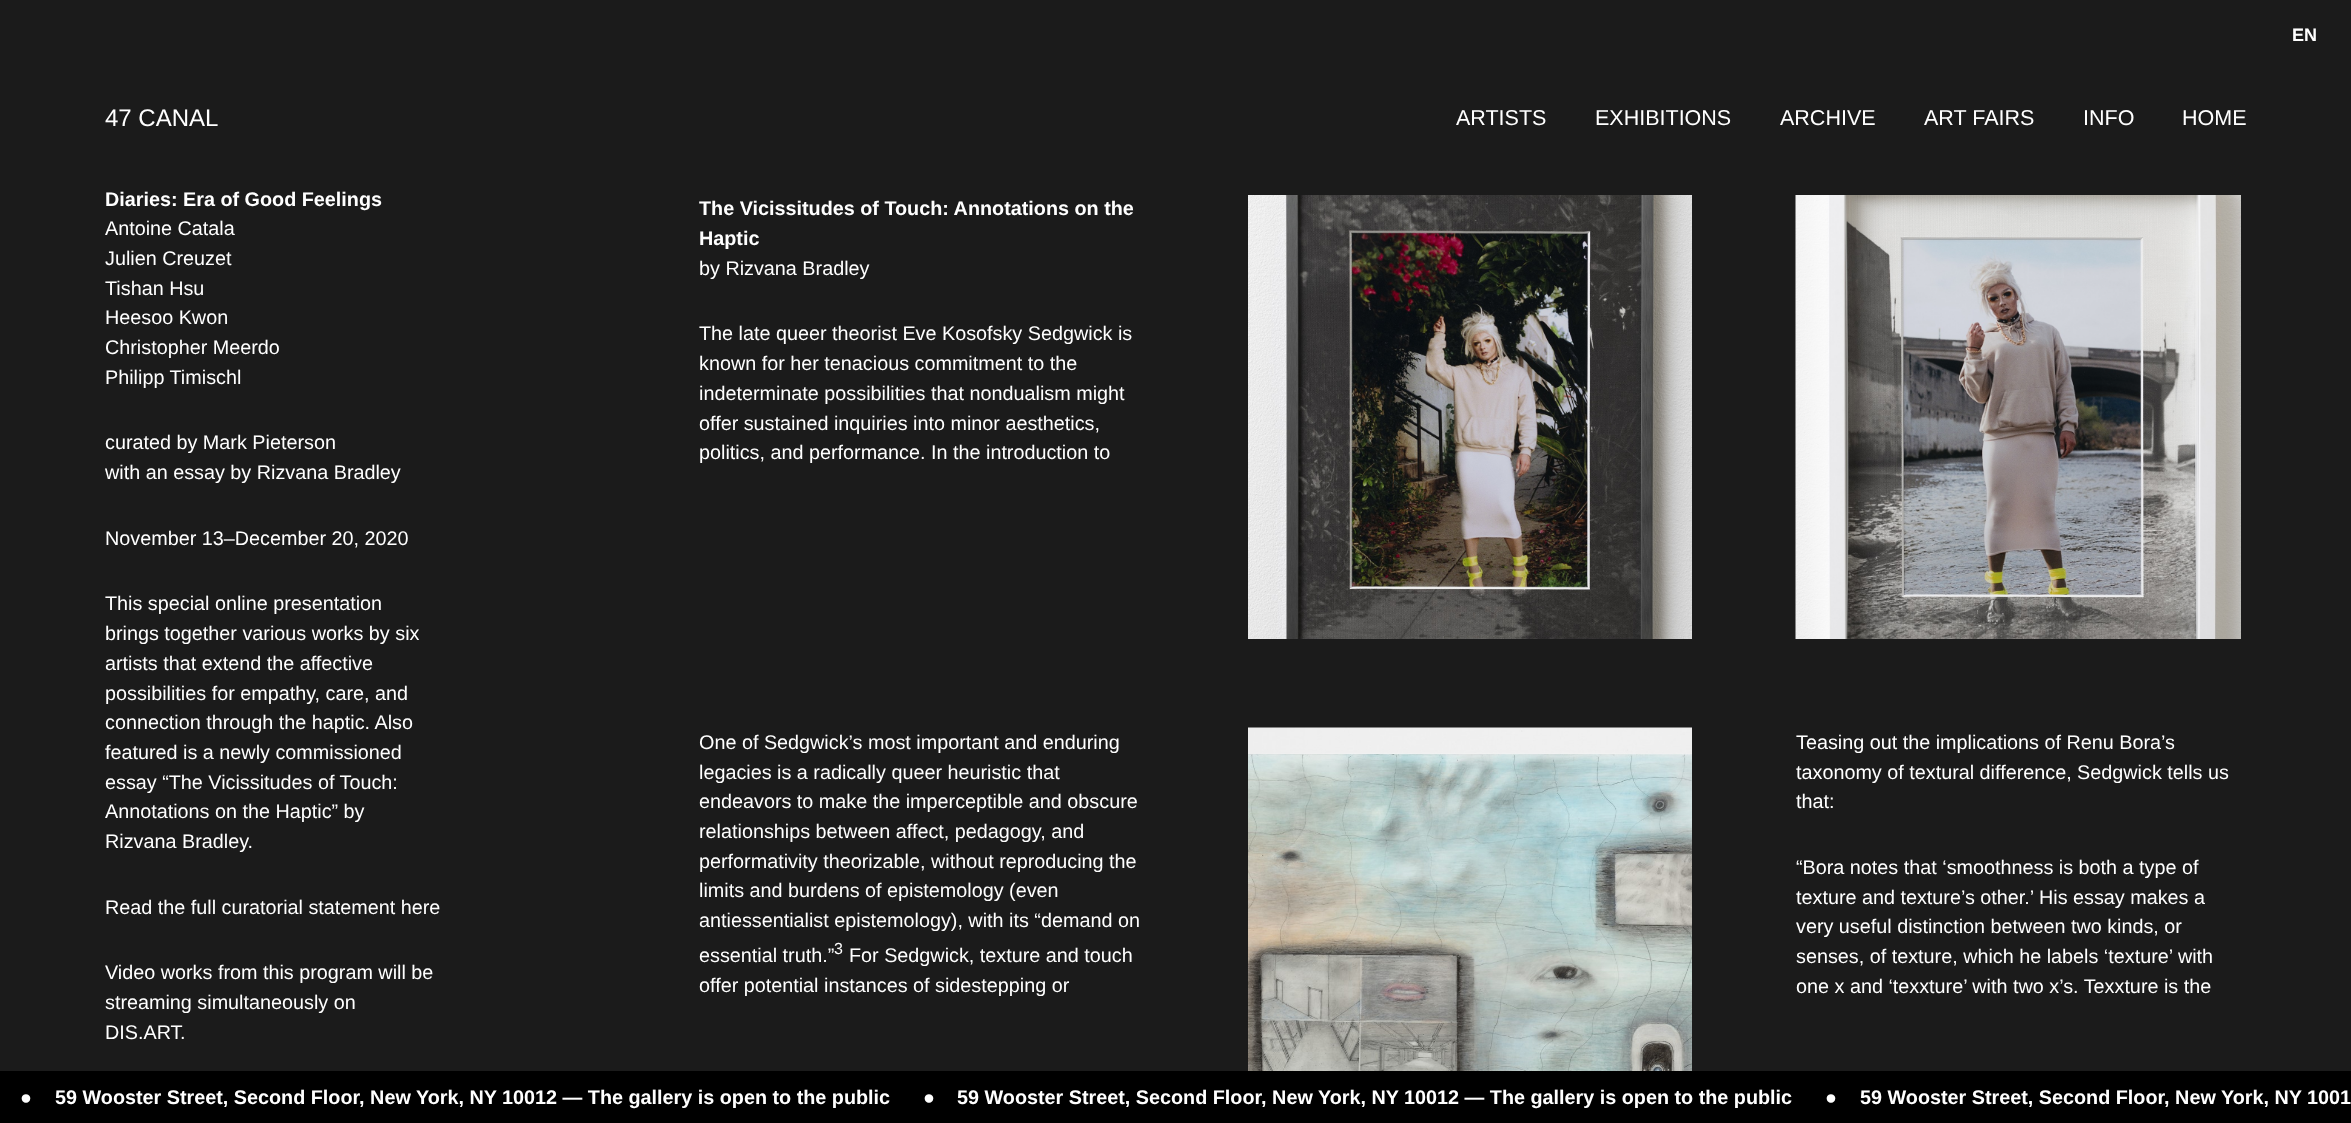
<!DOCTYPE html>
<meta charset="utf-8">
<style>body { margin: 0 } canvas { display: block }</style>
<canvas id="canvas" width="2351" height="1123"></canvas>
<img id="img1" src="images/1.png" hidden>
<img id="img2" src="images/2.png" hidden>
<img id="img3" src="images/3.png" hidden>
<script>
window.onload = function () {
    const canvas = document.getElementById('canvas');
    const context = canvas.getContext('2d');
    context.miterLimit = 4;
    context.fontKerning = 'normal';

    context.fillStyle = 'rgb(27, 27, 27)';
    context.fillRect(0, 0, 2351, 1123);
    context.drawImage(document.getElementById('img1'), 1248, 195, 444, 444);
    context.drawImage(document.getElementById('img2'), 1795, 195, 446, 444);
    context.drawImage(document.getElementById('img3'), 1248, 727, 444, 344);
    context.fillStyle = 'rgb(0, 0, 0)';
    context.fillRect(0, 1071, 2351, 52);
    context.font = 'bold 18px Liberation Sans';
    context.fillStyle = 'rgb(255, 255, 255)';
    context.fillText('EN', 2292, 41);
    context.font = '24px Liberation Sans';
    context.fillText('47 CANAL', 105, 126);
    context.font = '21.5px Liberation Sans';
    context.fillText('ARTISTS', 1456, 125);
    context.fillText('EXHIBITIONS', 1595, 125);
    context.fillText('ARCHIVE', 1780, 125);
    context.fillText('ART FAIRS', 1924, 125);
    context.fillText('INFO', 2083, 125);
    context.fillText('HOME', 2182, 125);
    context.font = 'bold 19.8px Liberation Sans';
    context.fillText('Diaries: Era of Good Feelings', 105, 206);
    context.font = '19.8px Liberation Sans';
    context.fillText('Antoine Catala', 105, 235);
    context.fillText('Julien Creuzet', 105, 265);
    context.fillText('Tishan Hsu', 105, 295);
    context.fillText('Heesoo Kwon', 105, 324);
    context.fillText('Christopher Meerdo', 105, 354);
    context.fillText('Philipp Timischl', 105, 384);
    context.fillText('curated by Mark Pieterson', 105, 449);
    context.fillText('with an essay by Rizvana Bradley', 105, 479);
    context.fillText('November 13–December 20, 2020', 105, 545);
    context.fillText('This special online presentation', 105, 610);
    context.fillText('brings together various works by six', 105, 640);
    context.fillText('artists that extend the affective', 105, 670);
    context.fillText('possibilities for empathy, care, and', 105, 700);
    context.fillText('connection through the haptic. Also', 105, 729);
    context.fillText('featured is a newly commissioned', 105, 759);
    context.fillText('essay “The Vicissitudes of Touch:', 105, 789);
    context.fillText('Annotations on the Haptic” by', 105, 818);
    context.fillText('Rizvana Bradley.', 105, 848);
    context.fillText('Read the full curatorial statement here', 105, 914);
    context.fillText('Video works from this program will be', 105, 979);
    context.fillText('streaming simultaneously on', 105, 1009);
    context.fillText('DIS.ART', 105, 1039);
    context.fillText('.', 180, 1039);
    context.font = 'bold 19.8px Liberation Sans';
    context.fillText('The Vicissitudes of Touch: Annotations on the', 699, 215);
    context.fillText('Haptic', 699, 245);
    context.font = '19.8px Liberation Sans';
    context.fillText('by Rizvana Bradley', 699, 275);
    context.fillText('The late queer theorist Eve Kosofsky Sedgwick is', 699, 340);
    context.fillText('known for her tenacious commitment to the', 699, 370);
    context.fillText('indeterminate possibilities that nondualism might', 699, 400);
    context.fillText('offer sustained inquiries into minor aesthetics,', 699, 430);
    context.fillText('politics, and performance. In the introduction to', 699, 459);
    context.fillText('One of Sedgwick’s most important and enduring', 699, 749);
    context.fillText('legacies is a radically queer heuristic that', 699, 779);
    context.fillText('endeavors to make the imperceptible and obscure', 699, 808);
    context.fillText('relationships between affect, pedagogy, and', 699, 838);
    context.fillText('performativity theorizable, without reproducing the', 699, 868);
    context.fillText('limits and burdens of epistemology (even', 699, 897);
    context.fillText('antiessentialist epistemology), with its “demand on', 699, 927);
    context.fillText('essential truth.”', 699, 962);
    context.font = '16px Liberation Sans';
    context.fillText('3', 834, 954);
    context.font = '19.8px Liberation Sans';
    context.fillText('For Sedgwick, texture and touch', 849, 962);
    context.fillText('offer potential instances of sidestepping or', 699, 992);
    context.fillText('Teasing out the implications of Renu Bora’s', 1796, 749);
    context.fillText('taxonomy of textural difference, Sedgwick tells us', 1796, 779);
    context.fillText('that:', 1796, 808);
    context.fillText('“Bora notes that ‘smoothness is both a type of', 1796, 874);
    context.fillText('texture and texture’s other.’ His essay makes a', 1796, 904);
    context.fillText('very useful distinction between two kinds, or', 1796, 933);
    context.fillText('senses, of texture, which he labels ‘texture’ with', 1796, 963);
    context.fillText('one x and ‘texxture’ with two x’s. Texxture is the', 1796, 993);
    context.font = 'bold 19.8px Liberation Sans';
    context.fillText('●', 20, 1104);
    context.fillText('59 Wooster Street, Second Floor, New York, NY 10012 — The gallery is open to the public', 55, 1104);
    context.fillText('●', 923, 1104);
    context.fillText('59 Wooster Street, Second Floor, New York, NY 10012 — The gallery is open to the public', 957, 1104);
    context.fillText('●', 1825, 1104);
    context.fillText('59 Wooster Street, Second Floor, New York, NY 1001', 1860, 1104);
};
</script>
